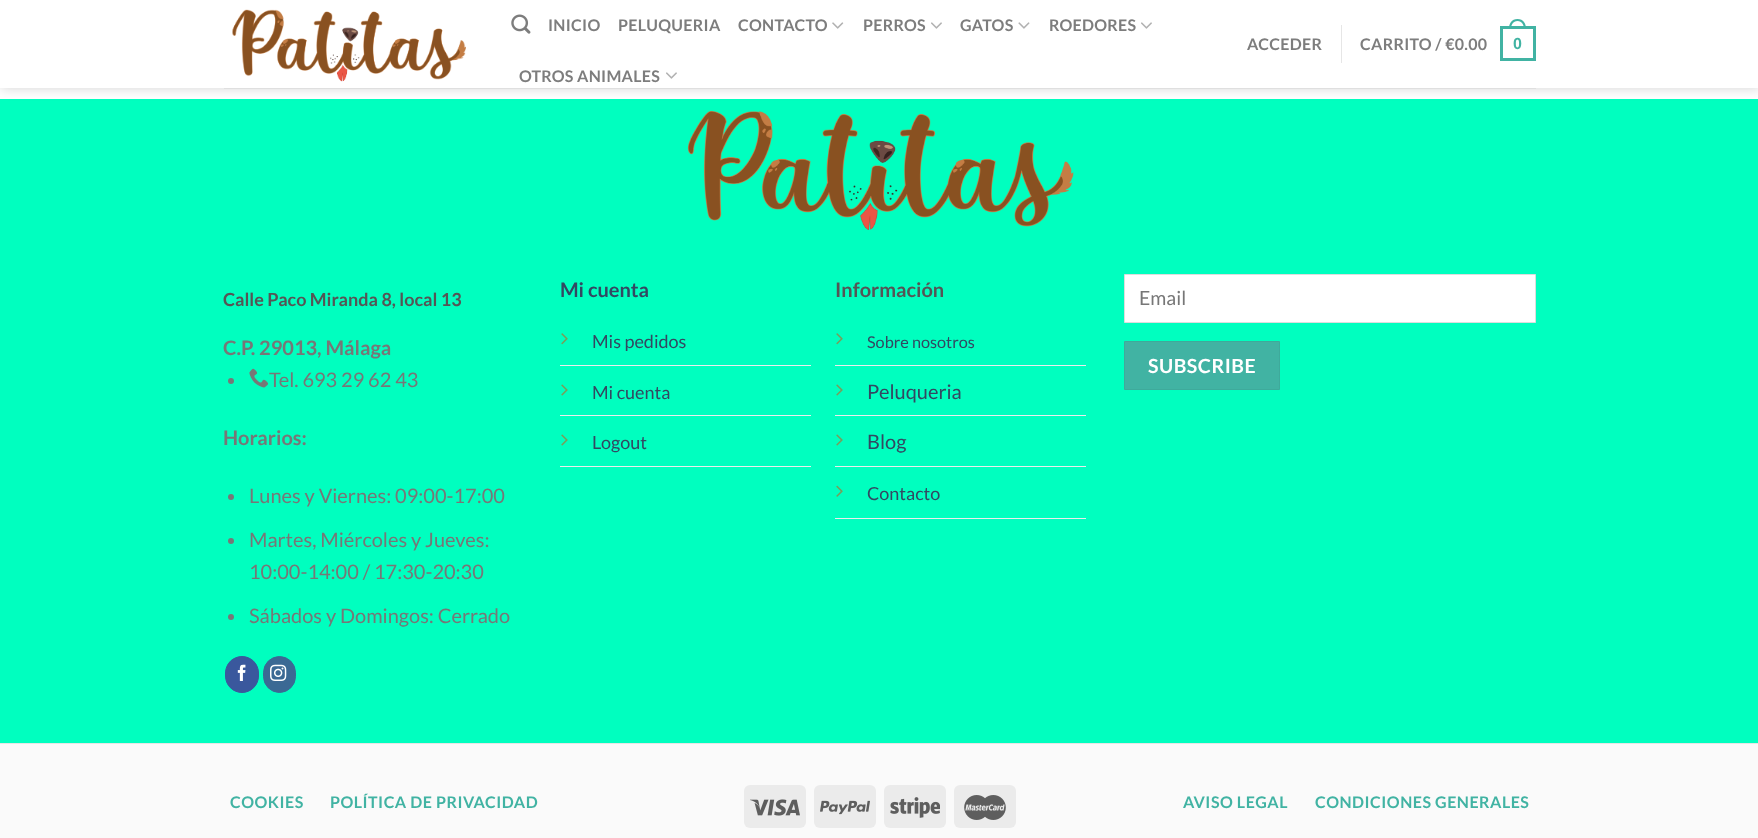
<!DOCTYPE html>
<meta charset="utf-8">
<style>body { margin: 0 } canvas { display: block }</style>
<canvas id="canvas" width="1758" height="838"></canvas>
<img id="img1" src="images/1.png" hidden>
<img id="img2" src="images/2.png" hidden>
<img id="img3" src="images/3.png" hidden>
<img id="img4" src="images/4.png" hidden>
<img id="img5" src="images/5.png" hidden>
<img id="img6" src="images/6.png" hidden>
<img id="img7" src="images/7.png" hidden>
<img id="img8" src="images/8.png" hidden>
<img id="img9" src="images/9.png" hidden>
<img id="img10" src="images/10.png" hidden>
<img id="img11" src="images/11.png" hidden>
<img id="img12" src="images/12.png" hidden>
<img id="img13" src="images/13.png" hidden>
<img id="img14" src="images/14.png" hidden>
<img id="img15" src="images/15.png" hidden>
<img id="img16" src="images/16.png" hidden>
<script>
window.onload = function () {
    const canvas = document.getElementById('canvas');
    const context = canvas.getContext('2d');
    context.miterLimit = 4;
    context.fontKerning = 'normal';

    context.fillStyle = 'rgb(255, 255, 255)';
    context.fillRect(0, 0, 1758, 838);
    context.fillStyle = 'rgb(0, 255, 191)';
    context.fillRect(0, 99, 1758, 644);
    context.save();
    context.beginPath();
    context.moveTo(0, 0);
    context.lineTo(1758, 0);
    context.lineTo(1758, 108);
    context.lineTo(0, 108);
    context.closePath();
    context.moveTo(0, 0);
    context.lineTo(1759, 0);
    context.lineTo(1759, 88);
    context.lineTo(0, 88);
    context.closePath();
    context.clip('evenodd');
    context.fillStyle = 'rgba(0, 0, 0, 0.15)';
    context.filter = 'blur(6px)';
    context.beginPath();
    context.rect(1, 1, 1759, 88);
    context.fill();
    context.filter = 'none';
    context.restore();
    context.drawImage(document.getElementById('img1'), 232, 9, 234, 73);
    context.drawImage(document.getElementById('img2'), 511, 14, 20, 20);
    context.drawImage(document.getElementById('img3'), 832, 22, 12, 7);
    context.drawImage(document.getElementById('img4'), 931, 22, 11, 7);
    context.drawImage(document.getElementById('img5'), 1018, 22, 12, 7);
    context.drawImage(document.getElementById('img4'), 1141, 22, 11, 7);
    context.drawImage(document.getElementById('img4'), 666, 72, 11, 7);
    context.fillStyle = 'rgb(230, 230, 230)';
    context.fillRect(1341, 25, 1, 38);
    context.strokeStyle = 'rgb(65, 179, 163)';
    context.lineWidth = 3;
    context.strokeRect(1501.5, 27.5, 33, 32);
    context.fillStyle = 'rgb(65, 179, 163)';
    context.beginPath();
    context.moveTo(1517.5, 19);
    context.bezierCurveTo(1523.5, 19, 1526, 23.5, 1526, 29);
    context.lineTo(1509, 29);
    context.bezierCurveTo(1509, 23.5, 1511.5, 19, 1517.5, 19);
    context.closePath();
    context.moveTo(1517.5, 21);
    context.bezierCurveTo(1522, 21, 1524, 25, 1524, 29);
    context.lineTo(1511, 29);
    context.bezierCurveTo(1511, 25, 1513, 21, 1517.5, 21);
    context.closePath();
    context.fill('evenodd');
    context.fillStyle = 'rgb(223, 223, 223)';
    context.fillRect(224, 88, 1312, 1);
    context.fillStyle = 'rgba(255, 255, 255, 0.9)';
    context.fillRect(0, 87, 1758, 1);
    context.drawImage(document.getElementById('img6'), 687, 110, 387, 120);
    context.fillStyle = 'rgb(119, 119, 119)';
    context.beginPath();
    context.arc(231, 381, 3, 0, 2 * Math.PI);
    context.fill();
    context.drawImage(document.getElementById('img7'), 249, 368, 20, 20);
    context.beginPath();
    context.arc(231, 497, 3, 0, 2 * Math.PI);
    context.fill();
    context.beginPath();
    context.arc(231, 541, 3, 0, 2 * Math.PI);
    context.fill();
    context.beginPath();
    context.arc(231, 617, 3, 0, 2 * Math.PI);
    context.fill();
    context.fillStyle = 'rgb(58, 88, 157)';
    context.beginPath();
    context.roundRect(225.5, 656.5, 33, 36, 16.5);
    context.fill();
    context.strokeStyle = 'rgb(58, 88, 157)';
    context.lineWidth = 1;
    context.stroke();
    context.drawImage(document.getElementById('img8'), 237, 664, 9, 17);
    context.fillStyle = 'rgb(59, 105, 148)';
    context.beginPath();
    context.roundRect(263.5, 656.5, 32, 36, 16);
    context.fill();
    context.strokeStyle = 'rgb(59, 105, 148)';
    context.stroke();
    context.drawImage(document.getElementById('img9'), 270, 664, 17, 17);
    context.fillStyle = 'rgb(236, 236, 236)';
    context.fillRect(560, 365, 251, 1);
    context.drawImage(document.getElementById('img10'), 561, 333, 7, 12);
    context.fillRect(560, 415, 251, 1);
    context.drawImage(document.getElementById('img11'), 561, 384, 7, 12);
    context.fillRect(560, 466, 251, 1);
    context.drawImage(document.getElementById('img11'), 561, 434, 7, 12);
    context.fillRect(835, 365, 251, 1);
    context.drawImage(document.getElementById('img10'), 836, 333, 7, 12);
    context.fillRect(835, 415, 251, 1);
    context.drawImage(document.getElementById('img11'), 836, 384, 7, 12);
    context.fillRect(835, 466, 251, 1);
    context.drawImage(document.getElementById('img11'), 836, 434, 7, 12);
    context.fillRect(835, 518, 251, 1);
    context.drawImage(document.getElementById('img12'), 836, 485, 7, 12);
    context.fillStyle = 'rgb(255, 255, 255)';
    context.beginPath();
    context.rect(1124.5, 274.5, 411, 48);
    context.fill();
    context.strokeStyle = 'rgb(221, 221, 221)';
    context.stroke();
    context.fillStyle = 'rgb(65, 179, 163)';
    context.beginPath();
    context.rect(1124.5, 341.5, 155, 48);
    context.fill();
    context.strokeStyle = 'rgb(62, 170, 155)';
    context.stroke();
    context.fillStyle = 'rgb(230, 230, 230)';
    context.fillRect(0, 743, 1758, 1);
    context.fillStyle = 'rgb(250, 250, 250)';
    context.fillRect(0, 744, 1758, 94);
    context.fillStyle = 'rgb(235, 235, 235)';
    context.beginPath();
    context.roundRect(744, 785, 62, 43, 6);
    context.fill();
    context.drawImage(document.getElementById('img13'), 750, 799, 50, 17);
    context.beginPath();
    context.roundRect(814, 785, 62, 43, 6);
    context.fill();
    context.drawImage(document.getElementById('img14'), 820, 800, 50, 15);
    context.beginPath();
    context.roundRect(884, 785, 62, 43, 6);
    context.fill();
    context.drawImage(document.getElementById('img15'), 890, 797, 50, 21);
    context.beginPath();
    context.roundRect(954, 785, 62, 43, 6);
    context.fill();
    context.drawImage(document.getElementById('img16'), 964, 795, 42, 25);
    context.letterSpacing = '0.3px';
    context.font = 'bold 16px Lato';
    context.fillStyle = 'rgb(125, 125, 125)';
    context.fillText('INICIO', 548, 31);
    context.fillText('PELUQUERIA', 618, 31);
    context.fillText('CONTACTO', 738, 31);
    context.fillText('PERROS', 863, 31);
    context.fillText('GATOS', 960, 31);
    context.fillText('ROEDORES', 1049, 31);
    context.fillText('OTROS ANIMALES', 519, 82);
    context.fillText('ACCEDER', 1247, 50);
    context.fillText('CARRITO / €0.00', 1360, 50);
    context.font = 'bold 16px Liberation Sans';
    context.fillStyle = 'rgb(65, 179, 163)';
    context.fillText('0', 1513, 49);
    context.letterSpacing = '0px';
    context.font = 'bold 18px Lato';
    context.fillStyle = 'rgb(85, 85, 85)';
    context.fillText('Calle Paco Miranda 8, local 13', 223, 306);
    context.font = 'bold 20px Lato';
    context.fillStyle = 'rgb(119, 119, 119)';
    context.fillText('C.P. 29013, Málaga', 223, 355);
    context.font = '20px Lato';
    context.fillText('Tel. 693 29 62 43', 269, 387);
    context.font = 'bold 20px Lato';
    context.fillText('Horarios:', 223, 445);
    context.font = '20px Lato';
    context.fillText('Lunes y Viernes: 09:00-17:00', 249, 503);
    context.fillText('Martes, Miércoles y Jueves:', 249, 547);
    context.fillText('10:00-14:00 / 17:30-20:30', 249, 579);
    context.fillText('Sábados y Domingos: Cerrado', 249, 623);
    context.font = 'bold 20px Lato';
    context.fillStyle = 'rgb(51, 72, 98)';
    context.fillText('Mi cuenta', 560, 297);
    context.font = '18px Lato';
    context.fillText('Mis pedidos', 592, 348);
    context.fillText('Mi cuenta', 592, 399);
    context.fillText('Logout', 592, 449);
    context.font = 'bold 20px Lato';
    context.fillStyle = 'rgb(85, 85, 85)';
    context.fillText('Información', 835, 297);
    context.font = '16.25px Lato';
    context.fillStyle = 'rgb(51, 72, 98)';
    context.fillText('Sobre nosotros', 867, 348);
    context.font = '20px Lato';
    context.fillText('Peluqueria', 867, 399);
    context.fillText('Blog', 867, 449);
    context.font = '18px Lato';
    context.fillText('Contacto', 867, 500);
    context.font = '19.5px Lato';
    context.fillStyle = 'rgb(119, 119, 119)';
    context.fillText('Email', 1139, 305);
    context.letterSpacing = '0.5px';
    context.font = 'bold 19.5px Lato';
    context.fillStyle = 'rgb(255, 255, 255)';
    context.fillText('SUBSCRIBE', 1148, 373);
    context.font = 'bold 16px Lato';
    context.fillStyle = 'rgb(65, 179, 163)';
    context.fillText('COOKIES', 230, 808);
    context.fillText('POLÍTICA DE PRIVACIDAD', 330, 808);
    context.fillText('AVISO LEGAL', 1183, 808);
    context.fillText('CONDICIONES GENERALES', 1315, 808);
};
</script>
